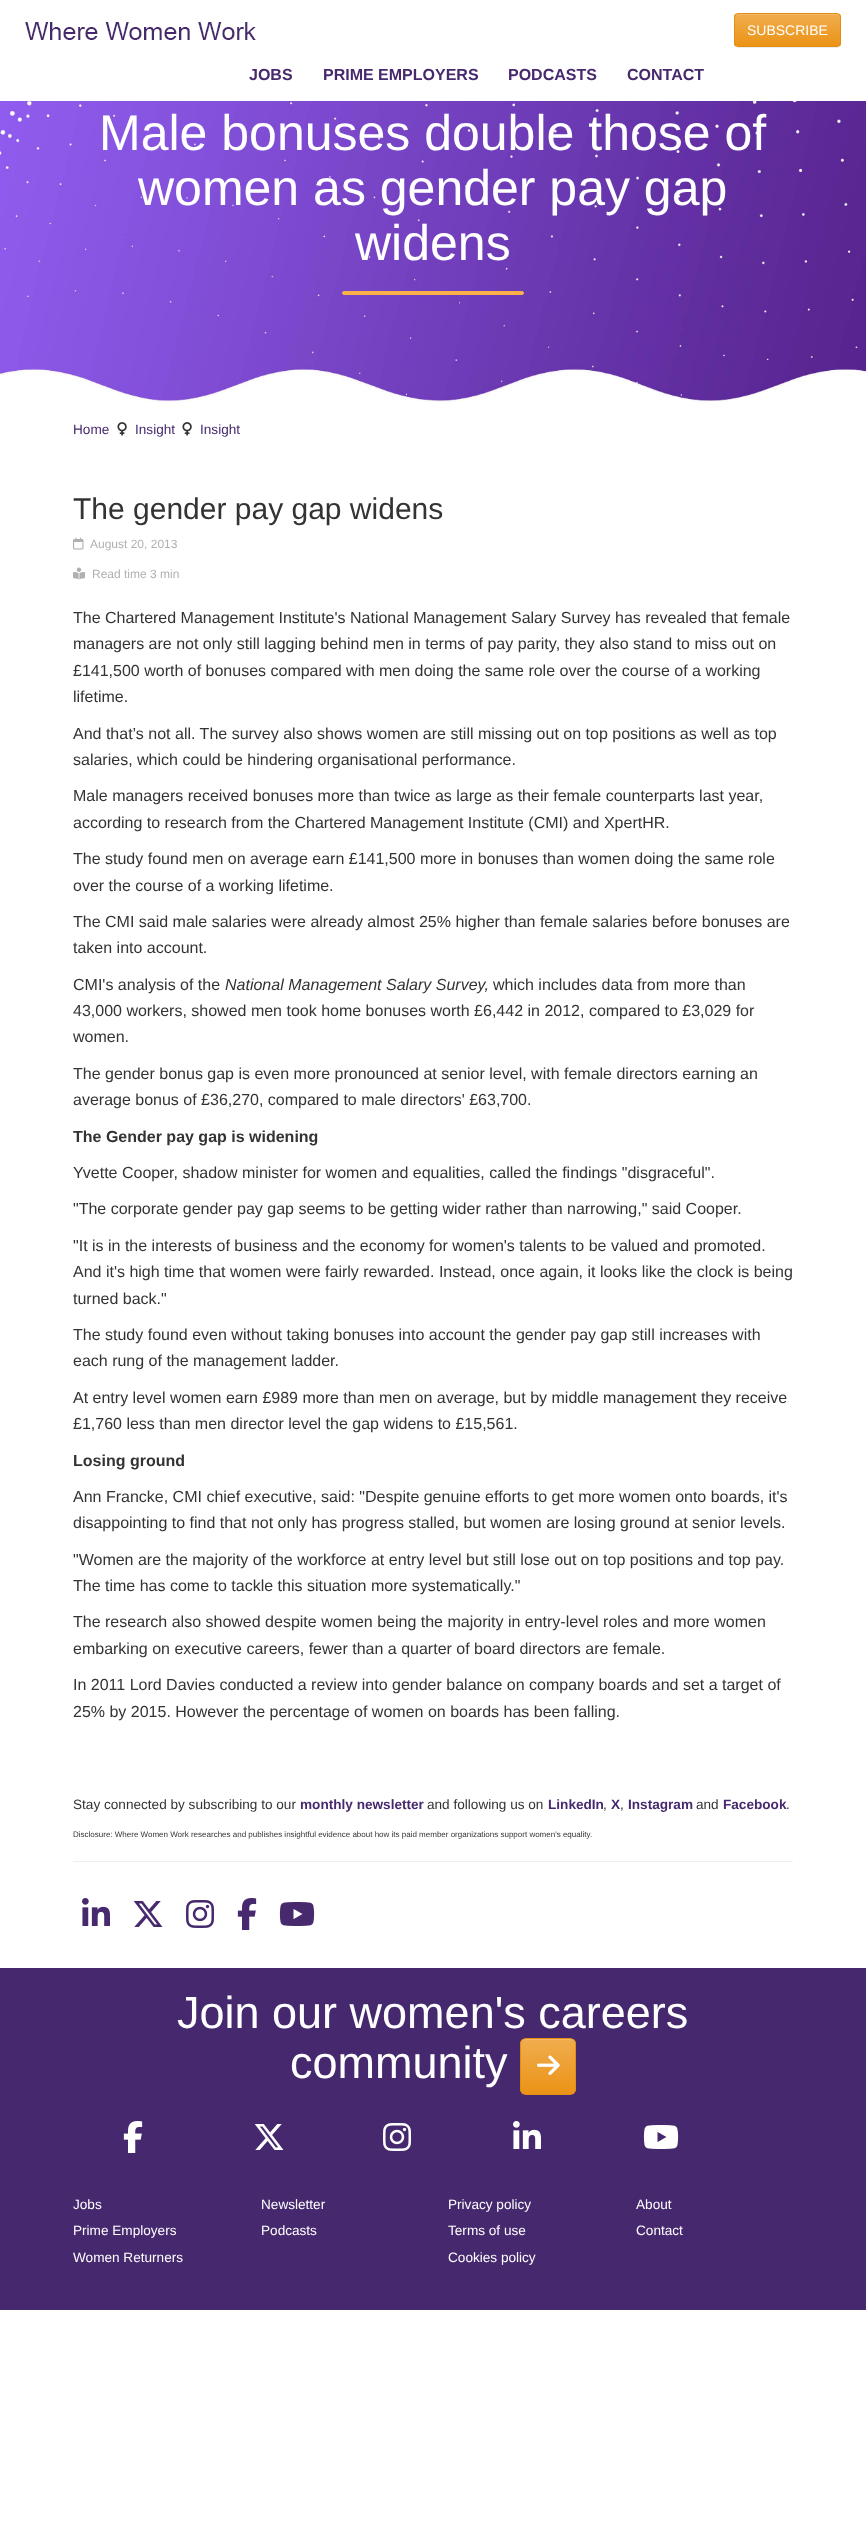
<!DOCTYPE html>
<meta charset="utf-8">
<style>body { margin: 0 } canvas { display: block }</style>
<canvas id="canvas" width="866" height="2526"></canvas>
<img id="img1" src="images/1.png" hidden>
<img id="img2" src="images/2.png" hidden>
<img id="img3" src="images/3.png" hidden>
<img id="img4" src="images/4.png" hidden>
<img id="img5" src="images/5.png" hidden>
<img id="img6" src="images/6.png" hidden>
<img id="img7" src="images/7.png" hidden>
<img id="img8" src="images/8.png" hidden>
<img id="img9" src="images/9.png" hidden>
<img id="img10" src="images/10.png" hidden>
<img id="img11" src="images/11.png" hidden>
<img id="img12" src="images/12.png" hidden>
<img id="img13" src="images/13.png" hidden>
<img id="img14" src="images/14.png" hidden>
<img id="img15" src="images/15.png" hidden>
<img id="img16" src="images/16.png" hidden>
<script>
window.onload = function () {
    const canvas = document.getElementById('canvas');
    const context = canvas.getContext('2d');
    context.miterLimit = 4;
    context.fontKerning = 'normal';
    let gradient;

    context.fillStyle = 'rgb(255, 255, 255)';
    context.fillRect(0, 0, 866, 2526);
    context.drawImage(document.getElementById('img1'), 25, 22, 231, 18);
    context.fillStyle = 'rgba(0, 0, 0, 0.07)';
    context.filter = 'blur(0.5px)';
    context.beginPath();
    context.roundRect(734, 14, 107, 34, 4);
    context.fill();
    context.filter = 'none';
    context.save();
    context.beginPath();
    context.roundRect(734, 13, 107, 34, 4);
    context.clip();
    gradient = context.createLinearGradient(788, 14, 788, 46);
    gradient.addColorStop(0, 'rgb(240, 173, 78)');
    gradient.addColorStop(1, 'rgb(235, 147, 22)');
    context.fillStyle = gradient;
    context.fillRect(734, 14, 107, 32);
    context.restore();
    context.fillStyle = 'rgb(242, 185, 104)';
    context.beginPath();
    context.moveTo(738, 15);
    context.lineTo(837, 15);
    context.bezierCurveTo(839, 15, 840, 16, 840, 18);
    context.bezierCurveTo(840, 10, 823, 14, 820, 14);
    context.lineTo(754, 14);
    context.bezierCurveTo(752, 14, 735, 10, 735, 18);
    context.bezierCurveTo(735, 16, 736, 15, 738, 15);
    context.closePath();
    context.fill();
    context.beginPath();
    context.roundRect(734.5, 13.5, 106, 33, 3.5);
    context.strokeStyle = 'rgb(227, 141, 19)';
    context.stroke();
    context.drawImage(document.getElementById('img2'), 0, 101, 866, 301);
    context.fillStyle = 'rgb(251, 177, 73)';
    context.beginPath();
    context.roundRect(342.5, 291.5, 181, 3, 1.5);
    context.fill();
    context.strokeStyle = 'rgb(251, 177, 73)';
    context.stroke();
    context.drawImage(document.getElementById('img3'), 117, 422, 10, 14);
    context.drawImage(document.getElementById('img3'), 182, 422, 10, 14);
    context.drawImage(document.getElementById('img4'), 73, 537, 11, 13);
    context.drawImage(document.getElementById('img5'), 73, 567, 12, 13);
    context.fillStyle = 'rgb(238, 238, 238)';
    context.fillRect(73, 1861, 720, 1);
    context.drawImage(document.getElementById('img6'), 82, 1898, 28, 28);
    context.drawImage(document.getElementById('img7'), 133, 1901, 30, 26);
    context.drawImage(document.getElementById('img8'), 186, 1900, 28, 28);
    context.drawImage(document.getElementById('img9'), 237, 1898, 20, 32);
    context.drawImage(document.getElementById('img10'), 279, 1902, 36, 24);
    context.fillStyle = 'rgb(70, 40, 110)';
    context.fillRect(0, 1968, 866, 342);
    context.save();
    context.beginPath();
    context.roundRect(520, 2038, 56, 57, 6);
    context.clip();
    gradient = context.createLinearGradient(548, 2039, 548, 2094);
    gradient.addColorStop(0, 'rgb(240, 173, 78)');
    gradient.addColorStop(1, 'rgb(235, 147, 22)');
    context.fillStyle = gradient;
    context.fillRect(520, 2039, 56, 55);
    context.restore();
    context.fillStyle = 'rgb(242, 185, 104)';
    context.beginPath();
    context.moveTo(526, 2040);
    context.lineTo(570, 2040);
    context.bezierCurveTo(573, 2040, 575, 2042, 575, 2045);
    context.bezierCurveTo(575, 2037, 568, 2039, 563, 2039);
    context.lineTo(533, 2039);
    context.bezierCurveTo(528, 2039, 521, 2037, 521, 2045);
    context.bezierCurveTo(521, 2042, 523, 2040, 526, 2040);
    context.closePath();
    context.fill();
    context.beginPath();
    context.roundRect(520.5, 2038.5, 55, 56, 5.5);
    context.strokeStyle = 'rgb(227, 141, 19)';
    context.stroke();
    context.drawImage(document.getElementById('img11'), 537, 2055, 23, 20);
    context.drawImage(document.getElementById('img12'), 123, 2121, 20, 32);
    context.drawImage(document.getElementById('img13'), 254, 2124, 30, 26);
    context.drawImage(document.getElementById('img14'), 383, 2123, 28, 28);
    context.drawImage(document.getElementById('img15'), 513, 2121, 28, 28);
    context.drawImage(document.getElementById('img16'), 643, 2125, 36, 24);
    context.font = '14px Liberation Sans';
    context.fillStyle = 'rgb(255, 255, 255)';
    context.fillText('SUBSCRIBE', 747, 35);
    context.font = 'bold 16px Liberation Sans';
    context.fillStyle = 'rgb(71, 41, 110)';
    context.fillText('JOBS', 249, 80);
    context.fillText('PRIME EMPLOYERS', 323, 80);
    context.fillText('PODCASTS', 508, 80);
    context.fillText('CONTACT', 627, 80);
    context.font = '50px Liberation Sans';
    context.fillStyle = 'rgb(255, 255, 255)';
    context.fillText('Male bonuses double those of', 99, 150);
    context.fillText('women as gender pay gap', 138, 205);
    context.fillText('widens', 355, 260);
    context.font = '13.6px Liberation Sans';
    context.fillStyle = 'rgb(71, 41, 110)';
    context.fillText('Home', 73, 434);
    context.fillText('Insight', 135, 434);
    context.fillText('Insight', 200, 434);
    context.font = '30px Liberation Sans';
    context.fillStyle = 'rgb(51, 51, 51)';
    context.fillText('The gender pay gap widens', 73, 519);
    context.font = '12px Liberation Sans';
    context.fillStyle = 'rgb(176, 176, 176)';
    context.fillText('August 20, 2013', 90, 548);
    context.fillText('Read time 3 min', 92, 578);
    context.font = '16px Liberation Sans';
    context.fillStyle = 'rgb(51, 51, 51)';
    context.fillText('The Chartered Management Institute\'s National Management Salary Survey has revealed that female', 73, 623);
    context.fillText('managers are not only still lagging behind men in terms of pay parity, they also stand to miss out on', 73, 649);
    context.fillText('£141,500 worth of bonuses compared with men doing the same role over the course of a working', 73, 676);
    context.fillText('lifetime.', 73, 702);
    context.fillText('And that’s not all. The survey also shows women are still missing out on top positions as well as top', 73, 739);
    context.fillText('salaries, which could be hindering organisational performance.', 73, 765);
    context.fillText('Male managers received bonuses more than twice as large as their female counterparts last year,', 73, 801);
    context.fillText('according to research from the Chartered Management Institute (CMI) and XpertHR.', 73, 828);
    context.fillText('The study found men on average earn £141,500 more in bonuses than women doing the same role', 73, 864);
    context.fillText('over the course of a working lifetime.', 73, 891);
    context.fillText('The CMI said male salaries were already almost 25% higher than female salaries before bonuses are', 73, 927);
    context.fillText('taken into account.', 73, 953);
    context.fillText('CMI\'s analysis of the', 73, 990);
    context.font = 'italic 16px Liberation Sans';
    context.fillText('National Management Salary Survey,', 225, 990);
    context.font = '16px Liberation Sans';
    context.fillText('which includes data from more than', 493, 990);
    context.fillText('43,000 workers, showed men took home bonuses worth £6,442 in 2012, compared to £3,029 for', 73, 1016);
    context.fillText('women.', 73, 1042);
    context.fillText('The gender bonus gap is even more pronounced at senior level, with female directors earning an', 73, 1079);
    context.fillText('average bonus of £36,270, compared to male directors\' £63,700.', 73, 1105);
    context.font = 'bold 16px Liberation Sans';
    context.fillText('The Gender pay gap is widening', 73, 1142);
    context.font = '16px Liberation Sans';
    context.fillText('Yvette Cooper, shadow minister for women and equalities, called the findings "disgraceful".', 73, 1178);
    context.fillText('"The corporate gender pay gap seems to be getting wider rather than narrowing," said Cooper.', 73, 1214);
    context.fillText('"It is in the interests of business and the economy for women\'s talents to be valued and promoted.', 73, 1251);
    context.fillText('And it\'s high time that women were fairly rewarded. Instead, once again, it looks like the clock is being', 73, 1277);
    context.fillText('turned back."', 73, 1304);
    context.fillText('The study found even without taking bonuses into account the gender pay gap still increases with', 73, 1340);
    context.fillText('each rung of the management ladder.', 73, 1366);
    context.fillText('At entry level women earn £989 more than men on average, but by middle management they receive', 73, 1403);
    context.fillText('£1,760 less than men director level the gap widens to £15,561.', 73, 1429);
    context.font = 'bold 16px Liberation Sans';
    context.fillText('Losing ground', 73, 1466);
    context.font = '16px Liberation Sans';
    context.fillText('Ann Francke, CMI chief executive, said: "Despite genuine efforts to get more women onto boards, it\'s', 73, 1502);
    context.fillText('disappointing to find that not only has progress stalled, but women are losing ground at senior levels.', 73, 1528);
    context.fillText('"Women are the majority of the workforce at entry level but still lose out on top positions and top pay.', 73, 1565);
    context.fillText('The time has come to tackle this situation more systematically."', 73, 1591);
    context.fillText('The research also showed despite women being the majority in entry-level roles and more women', 73, 1627);
    context.fillText('embarking on executive careers, fewer than a quarter of board directors are female.', 73, 1654);
    context.fillText('In 2011 Lord Davies conducted a review into gender balance on company boards and set a target of', 73, 1690);
    context.fillText('25% by 2015. However the percentage of women on boards has been falling.', 73, 1717);
    context.font = '13.6px Liberation Sans';
    context.fillText('Stay connected by subscribing to our', 73, 1809);
    context.font = 'bold 13.6px Liberation Sans';
    context.fillStyle = 'rgb(71, 41, 110)';
    context.fillText('monthly newsletter', 300, 1809);
    context.font = '13.6px Liberation Sans';
    context.fillStyle = 'rgb(51, 51, 51)';
    context.fillText('and following us on', 427, 1809);
    context.font = 'bold 13.6px Liberation Sans';
    context.fillStyle = 'rgb(71, 41, 110)';
    context.fillText('LinkedIn', 548, 1809);
    context.font = '13.6px Liberation Sans';
    context.fillStyle = 'rgb(51, 51, 51)';
    context.fillText(',', 603, 1809);
    context.font = 'bold 13.6px Liberation Sans';
    context.fillStyle = 'rgb(71, 41, 110)';
    context.fillText('X', 611, 1809);
    context.font = '13.6px Liberation Sans';
    context.fillStyle = 'rgb(51, 51, 51)';
    context.fillText(',', 620, 1809);
    context.font = 'bold 13.6px Liberation Sans';
    context.fillStyle = 'rgb(71, 41, 110)';
    context.fillText('Instagram', 628, 1809);
    context.font = '13.6px Liberation Sans';
    context.fillStyle = 'rgb(51, 51, 51)';
    context.fillText('and', 696, 1809);
    context.font = 'bold 13.6px Liberation Sans';
    context.fillStyle = 'rgb(71, 41, 110)';
    context.fillText('Facebook', 723, 1809);
    context.font = '13.6px Liberation Sans';
    context.fillStyle = 'rgb(51, 51, 51)';
    context.fillText('.', 786, 1809);
    context.font = '8px Liberation Sans';
    context.fillText('Disclosure: Where Women Work researches and publishes insightful evidence about how its paid member organizations support women\'s equality.', 73, 1837);
    context.font = '45px Liberation Sans';
    context.fillStyle = 'rgb(255, 255, 255)';
    context.fillText('Join our women\'s careers', 177, 2028);
    context.fillText('community', 290, 2078);
    context.font = '13.6px Liberation Sans';
    context.fillText('Jobs', 73, 2209);
    context.fillText('Prime Employers', 73, 2235);
    context.fillText('Women Returners', 73, 2262);
    context.fillText('Newsletter', 261, 2209);
    context.fillText('Podcasts', 261, 2235);
    context.fillText('Privacy policy', 448, 2209);
    context.fillText('Terms of use', 448, 2235);
    context.fillText('Cookies policy', 448, 2262);
    context.fillText('About', 636, 2209);
    context.fillText('Contact', 636, 2235);
};
</script>
